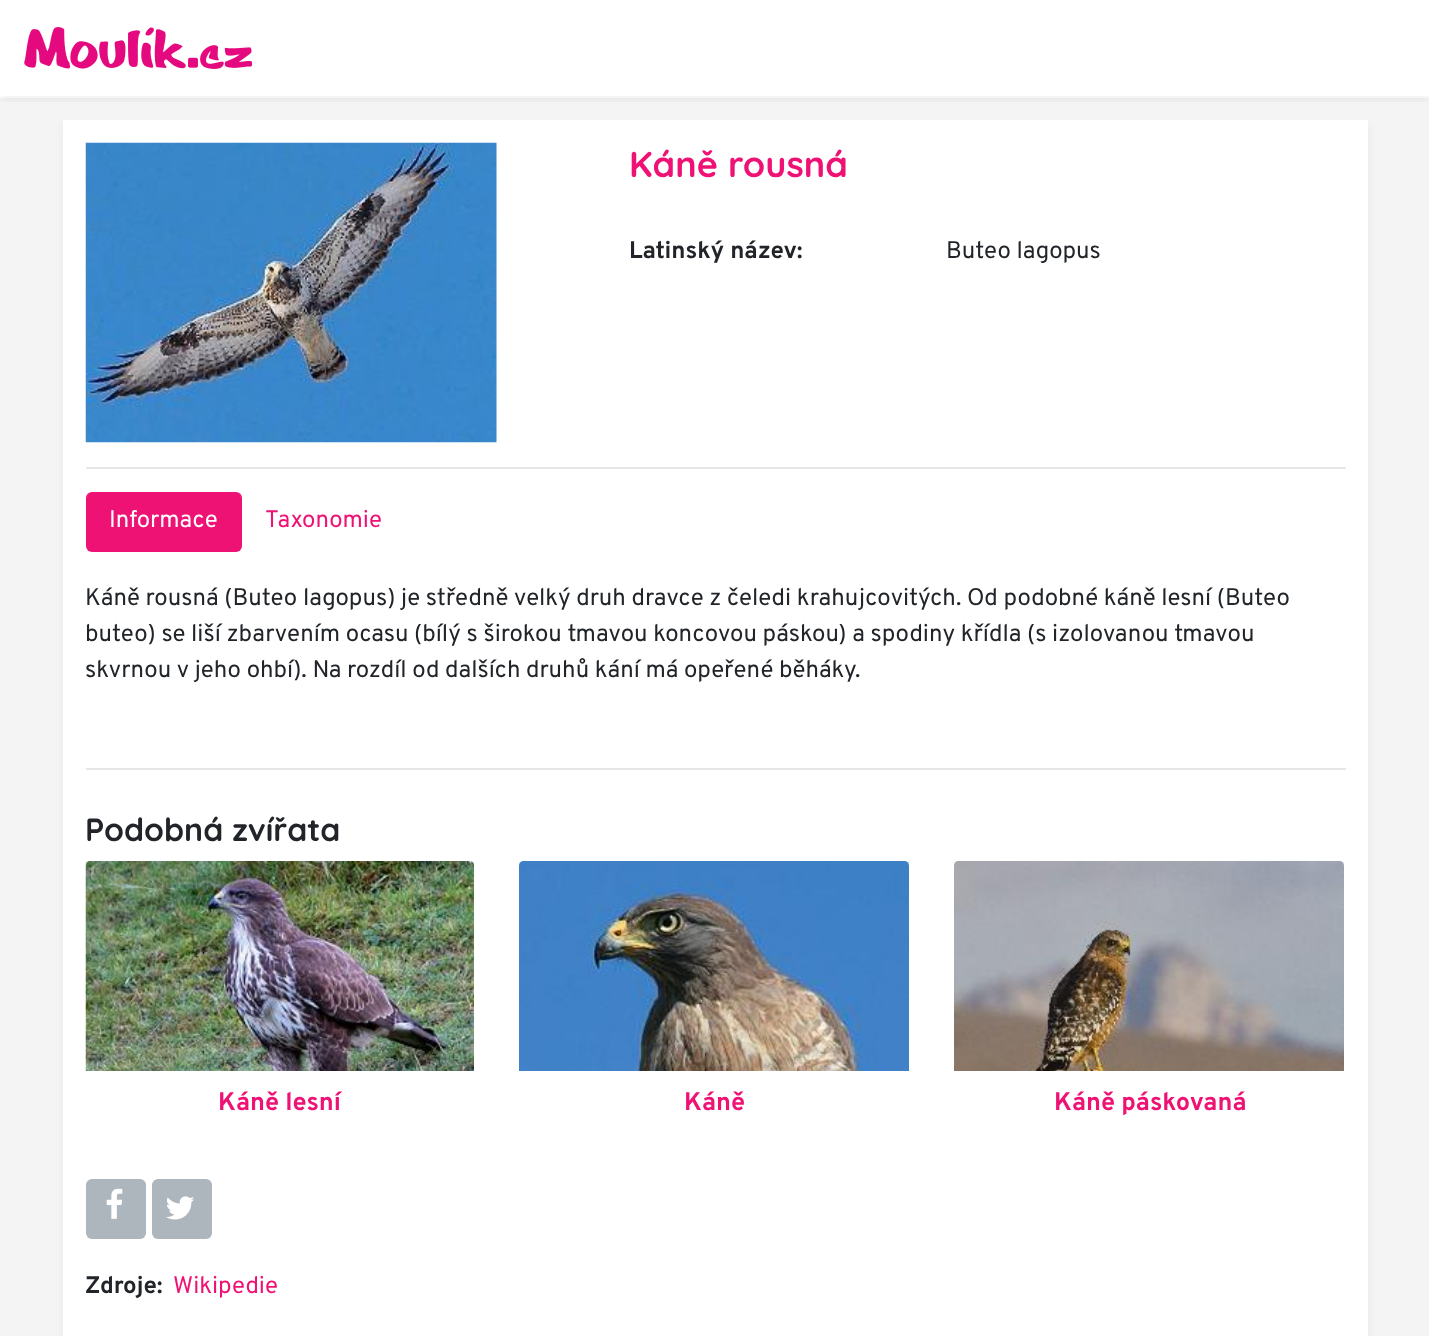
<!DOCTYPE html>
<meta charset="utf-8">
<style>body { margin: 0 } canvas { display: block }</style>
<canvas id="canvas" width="1429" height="1336"></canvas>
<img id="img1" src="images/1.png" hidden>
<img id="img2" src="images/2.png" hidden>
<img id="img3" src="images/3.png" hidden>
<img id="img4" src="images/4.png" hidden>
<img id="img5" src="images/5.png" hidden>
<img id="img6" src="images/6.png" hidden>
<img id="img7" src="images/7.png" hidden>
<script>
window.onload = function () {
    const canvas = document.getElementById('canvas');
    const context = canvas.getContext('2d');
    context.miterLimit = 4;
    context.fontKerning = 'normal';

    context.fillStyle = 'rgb(244, 244, 244)';
    context.fillRect(0, 0, 1429, 1336);
    context.fillStyle = 'rgb(255, 255, 255)';
    context.fillRect(0, 0, 1429, 98);
    context.save();
    context.beginPath();
    context.rect(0, 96, 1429, 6);
    context.clip();
    context.fillStyle = 'rgba(0, 0, 0, 0.05)';
    context.filter = 'blur(4.5px)';
    context.beginPath();
    context.rect(0, 5, 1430, 96);
    context.fill();
    context.filter = 'none';
    context.restore();
    context.drawImage(document.getElementById('img1'), 24, 27, 228, 42);
    context.fillStyle = 'rgba(0, 0, 0, 0.05)';
    context.filter = 'blur(4.5px)';
    context.beginPath();
    context.rect(63, 125, 1305, 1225);
    context.fill();
    context.filter = 'none';
    context.fillStyle = 'rgb(255, 255, 255)';
    context.fillRect(63, 120, 1305, 1216);
    context.drawImage(document.getElementById('img2'), 85, 142, 412, 301);
    context.fillStyle = 'rgb(230, 230, 230)';
    context.fillRect(86, 467, 1260, 2);
    context.fillStyle = 'rgb(239, 18, 117)';
    context.beginPath();
    context.roundRect(86, 492, 156, 60, 6);
    context.fill();
    context.fillStyle = 'rgb(230, 230, 230)';
    context.fillRect(86, 768, 1260, 2);
    context.drawImage(document.getElementById('img3'), 85, 861, 389, 210);
    context.drawImage(document.getElementById('img4'), 519, 861, 390, 210);
    context.drawImage(document.getElementById('img5'), 954, 861, 390, 210);
    context.fillStyle = 'rgb(173, 181, 189)';
    context.beginPath();
    context.roundRect(86, 1179, 60, 60, 6);
    context.fill();
    context.drawImage(document.getElementById('img6'), 106, 1188, 17, 31);
    context.beginPath();
    context.roundRect(152, 1179, 60, 60, 6);
    context.fill();
    context.drawImage(document.getElementById('img7'), 166, 1196, 28, 24);
    context.font = 'bold 36px Quicksand';
    context.fillStyle = 'rgb(239, 18, 117)';
    context.fillText('Káně rousná', 629, 177);
    context.font = 'bold 24px Overpass';
    context.fillStyle = 'rgb(33, 37, 41)';
    context.fillText('Latinský název:', 629, 258);
    context.font = '24px Overpass';
    context.fillText('Buteo lagopus', 946, 258);
    context.fillStyle = 'rgb(255, 255, 255)';
    context.fillText('Informace', 109, 527);
    context.fillStyle = 'rgb(239, 18, 117)';
    context.fillText('Taxonomie', 265, 527);
    context.fillStyle = 'rgb(33, 37, 41)';
    context.fillText('Káně rousná (Buteo lagopus) je středně velký druh dravce z čeledi krahujcovitých. Od podobné káně lesní (Buteo', 85, 605);
    context.fillText('buteo) se liší zbarvením ocasu (bílý s širokou tmavou koncovou páskou) a spodiny křídla (s izolovanou tmavou', 85, 641);
    context.fillText('skvrnou v jeho ohbí). Na rozdíl od dalších druhů kání má opeřené běháky.', 85, 677);
    context.font = 'bold 32px Quicksand';
    context.fillText('Podobná zvířata', 85, 841);
    context.font = 'bold 25.25px Overpass';
    context.fillStyle = 'rgb(239, 18, 117)';
    context.fillText('Káně lesní', 218, 1110);
    context.fillText('Káně', 684, 1110);
    context.fillText('Káně páskovaná', 1054, 1110);
    context.font = 'bold 24px Overpass';
    context.fillStyle = 'rgb(33, 37, 41)';
    context.fillText('Zdroje:', 85, 1293);
    context.font = '24px Overpass';
    context.fillStyle = 'rgb(239, 18, 117)';
    context.fillText('Wikipedie', 173, 1293);
};
</script>
